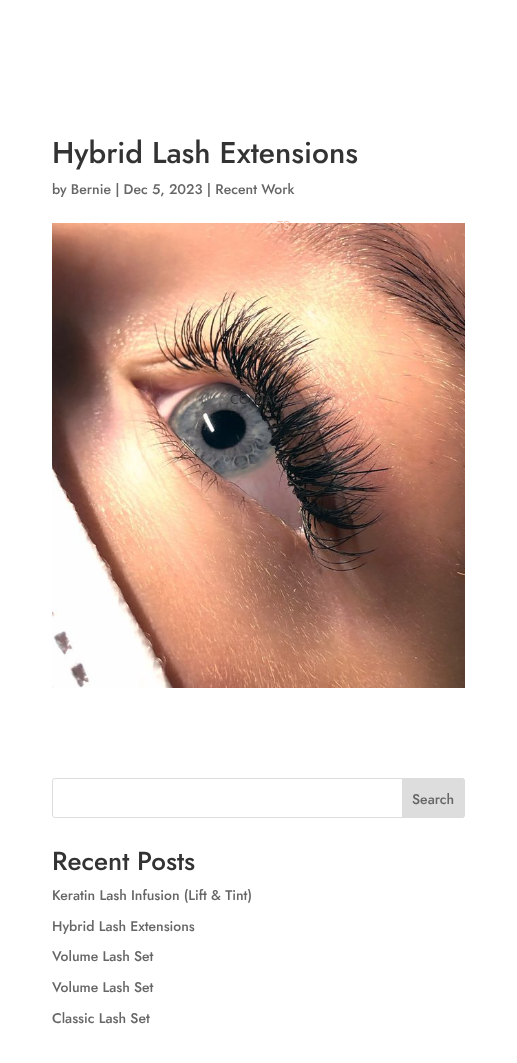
<!DOCTYPE html>
<meta charset="utf-8">
<style>body { margin: 0 } canvas { display: block }</style>
<canvas id="canvas" width="517" height="1063"></canvas>
<img id="img1" src="images/1.png" hidden>
<script>
window.onload = function () {
    const canvas = document.getElementById('canvas');
    const context = canvas.getContext('2d');
    context.miterLimit = 4;
    context.fontKerning = 'normal';

    context.fillStyle = 'rgb(255, 255, 255)';
    context.fillRect(0, 0, 517, 1063);
    context.drawImage(document.getElementById('img1'), 52, 223, 413, 465);
    context.beginPath();
    context.roundRect(52.5, 778.5, 412, 39, 2.5);
    context.strokeStyle = 'rgb(221, 221, 221)';
    context.stroke();
    context.fillStyle = 'rgb(221, 221, 221)';
    context.beginPath();
    context.roundRect(402.5, 778.5, 62, 39, [0, 2.5, 2.5, 0]);
    context.fill();
    context.stroke();
    context.font = '500 30px Jost';
    context.fillStyle = 'rgb(51, 51, 51)';
    context.fillText('Hybrid Lash Extensions', 52, 163);
    context.font = '500 14px Jost';
    context.fillStyle = 'rgb(102, 102, 102)';
    context.fillText('by Bernie | Dec 5, 2023 | Recent Work', 52, 194);
    context.fillText('Search', 412, 804);
    context.font = '500 26px Jost';
    context.fillStyle = 'rgb(51, 51, 51)';
    context.fillText('Recent Posts', 52, 870);
    context.font = '500 14px Jost';
    context.fillStyle = 'rgb(102, 102, 102)';
    context.fillText('Keratin Lash Infusion (Lift & Tint)', 52, 900);
    context.fillText('Hybrid Lash Extensions', 52, 931);
    context.fillText('Volume Lash Set', 52, 961);
    context.fillText('Volume Lash Set', 52, 992);
    context.fillText('Classic Lash Set', 52, 1023);
    context.font = '13px Jost';
    context.fillStyle = 'rgb(250, 202, 182)';
    context.fillText('TS', 277, 230);
    context.fillStyle = 'rgb(153, 127, 108)';
    context.fillText('CAREERS', 232, 346);
    context.fillStyle = 'rgb(58, 56, 58)';
    context.fillText('CONTACT', 230, 404);
};
</script>
